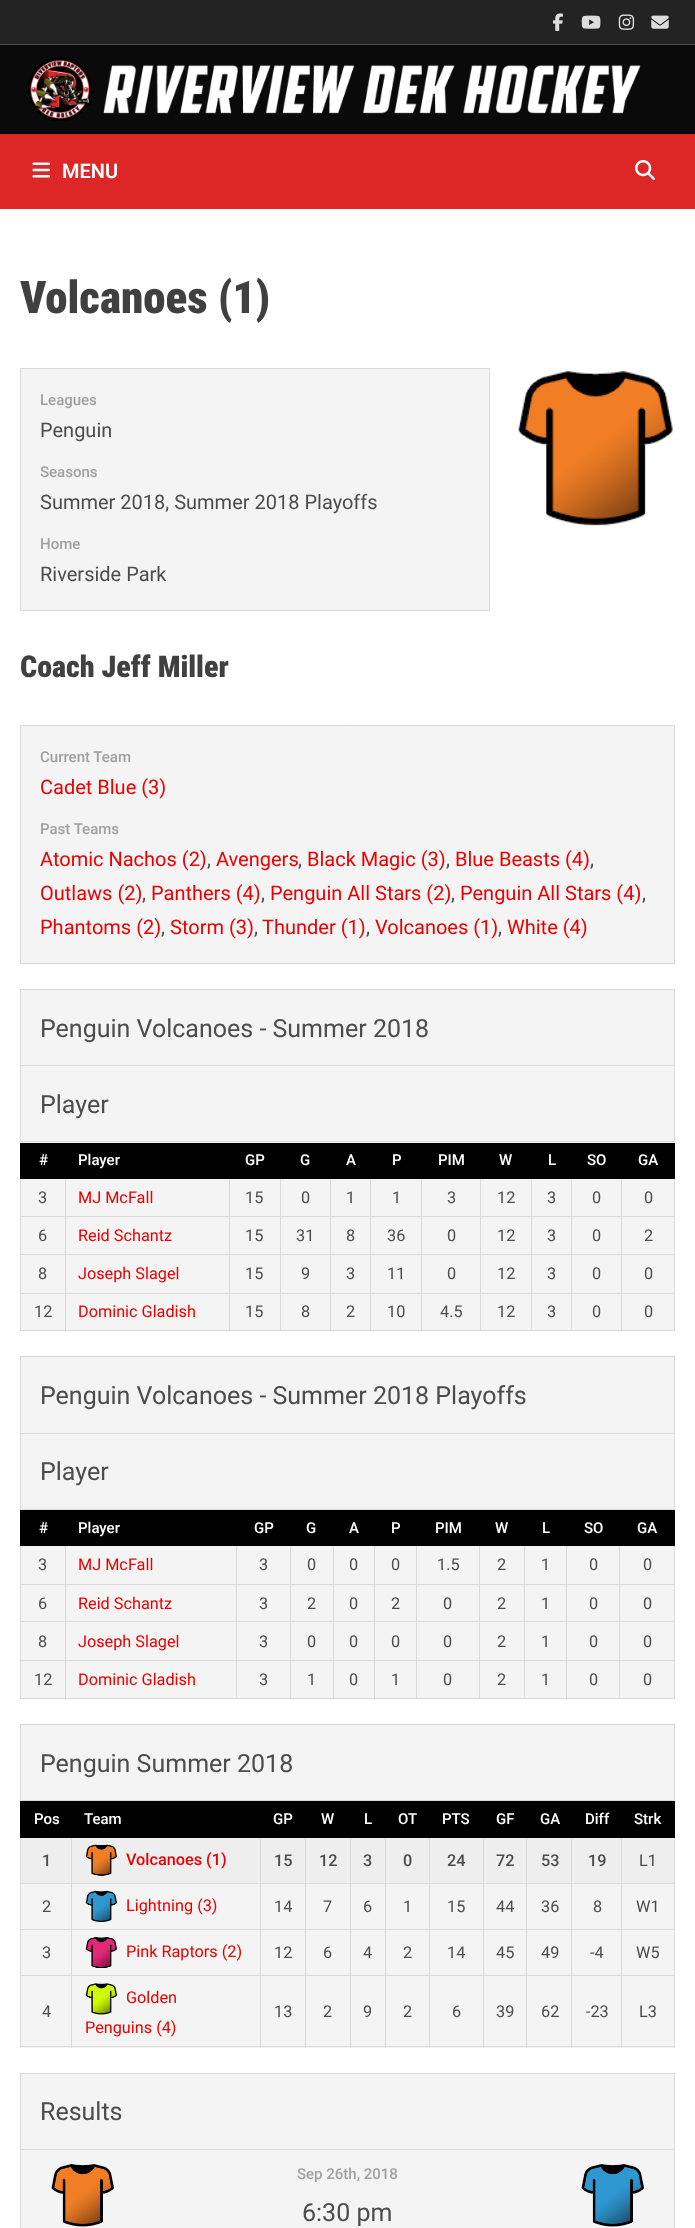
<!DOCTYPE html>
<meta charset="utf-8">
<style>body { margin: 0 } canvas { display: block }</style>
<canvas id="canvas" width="695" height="2228"></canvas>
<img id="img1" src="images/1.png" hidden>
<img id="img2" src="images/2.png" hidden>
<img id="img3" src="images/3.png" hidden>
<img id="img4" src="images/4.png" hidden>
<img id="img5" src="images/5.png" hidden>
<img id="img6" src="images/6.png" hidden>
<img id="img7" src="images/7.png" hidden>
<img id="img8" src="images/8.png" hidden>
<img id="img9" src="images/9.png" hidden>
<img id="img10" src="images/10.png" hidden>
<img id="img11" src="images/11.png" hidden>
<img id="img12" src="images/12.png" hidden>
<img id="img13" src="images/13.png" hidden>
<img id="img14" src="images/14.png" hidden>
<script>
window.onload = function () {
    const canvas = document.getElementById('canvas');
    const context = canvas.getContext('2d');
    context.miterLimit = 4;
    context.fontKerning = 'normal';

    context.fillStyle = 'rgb(255, 255, 255)';
    context.fillRect(0, 0, 695, 2228);
    context.fillStyle = 'rgb(35, 35, 35)';
    context.fillRect(0, 0, 695, 44);
    context.fillStyle = 'rgb(76, 76, 76)';
    context.fillRect(0, 44, 695, 1);
    context.drawImage(document.getElementById('img1'), 552, 13, 11, 18);
    context.drawImage(document.getElementById('img2'), 581, 15, 20, 14);
    context.drawImage(document.getElementById('img3'), 618, 14, 17, 16);
    context.drawImage(document.getElementById('img4'), 651, 15, 18, 14);
    context.fillStyle = 'rgb(10, 10, 10)';
    context.fillRect(0, 45, 695, 89);
    context.drawImage(document.getElementById('img5'), 28, 57, 613, 64);
    context.fillStyle = 'rgb(221, 39, 39)';
    context.fillRect(0, 134, 695, 75);
    context.drawImage(document.getElementById('img6'), 32, 162, 18, 16);
    context.drawImage(document.getElementById('img7'), 635, 160, 20, 20);
    context.fillStyle = 'rgb(244, 244, 244)';
    context.beginPath();
    context.rect(20.5, 368.5, 469, 242);
    context.fill();
    context.strokeStyle = 'rgb(218, 218, 218)';
    context.stroke();
    context.drawImage(document.getElementById('img8'), 518, 371, 155, 155);
    context.beginPath();
    context.rect(20.5, 725.5, 654, 238);
    context.fill();
    context.stroke();
    context.fillRect(21, 990, 653, 75);
    context.fillStyle = 'rgb(218, 218, 218)';
    context.fillRect(20, 989, 655, 1);
    context.fillRect(674, 989, 1, 76);
    context.fillRect(20, 989, 1, 76);
    context.fillStyle = 'rgb(244, 244, 244)';
    context.fillRect(21, 1066, 653, 75);
    context.fillStyle = 'rgb(218, 218, 218)';
    context.fillRect(20, 1065, 655, 1);
    context.fillRect(674, 1065, 1, 76);
    context.fillRect(20, 1065, 1, 76);
    context.fillStyle = 'rgb(244, 244, 244)';
    context.fillRect(21, 1142, 653, 188);
    context.fillStyle = 'rgb(218, 218, 218)';
    context.fillRect(20, 1141, 655, 1);
    context.fillRect(674, 1141, 1, 190);
    context.fillRect(20, 1330, 655, 1);
    context.fillRect(20, 1141, 1, 190);
    context.fillRect(621, 1216, 54, 1);
    context.fillRect(621, 1254, 54, 1);
    context.fillRect(621, 1293, 54, 1);
    context.fillRect(621, 1293, 1, 38);
    context.fillRect(571, 1293, 52, 1);
    context.fillRect(621, 1254, 1, 40);
    context.fillRect(571, 1254, 52, 1);
    context.fillRect(621, 1216, 1, 39);
    context.fillRect(571, 1216, 52, 1);
    context.fillRect(571, 1293, 1, 38);
    context.fillRect(531, 1293, 42, 1);
    context.fillRect(571, 1254, 1, 40);
    context.fillRect(531, 1254, 42, 1);
    context.fillRect(571, 1216, 1, 39);
    context.fillRect(531, 1216, 42, 1);
    context.fillRect(531, 1293, 1, 38);
    context.fillRect(480, 1293, 53, 1);
    context.fillRect(531, 1254, 1, 40);
    context.fillRect(480, 1254, 53, 1);
    context.fillRect(531, 1216, 1, 39);
    context.fillRect(480, 1216, 53, 1);
    context.fillRect(480, 1293, 1, 38);
    context.fillRect(421, 1293, 60, 1);
    context.fillRect(480, 1254, 1, 40);
    context.fillRect(421, 1254, 60, 1);
    context.fillRect(480, 1216, 1, 39);
    context.fillRect(421, 1216, 60, 1);
    context.fillRect(421, 1293, 1, 38);
    context.fillRect(370, 1293, 53, 1);
    context.fillRect(421, 1254, 1, 40);
    context.fillRect(370, 1254, 53, 1);
    context.fillRect(421, 1216, 1, 39);
    context.fillRect(370, 1216, 53, 1);
    context.fillRect(370, 1293, 1, 38);
    context.fillRect(330, 1293, 41, 1);
    context.fillRect(370, 1254, 1, 40);
    context.fillRect(330, 1254, 41, 1);
    context.fillRect(370, 1216, 1, 39);
    context.fillRect(330, 1216, 41, 1);
    context.fillRect(330, 1293, 1, 38);
    context.fillRect(280, 1293, 51, 1);
    context.fillRect(330, 1254, 1, 40);
    context.fillRect(280, 1254, 51, 1);
    context.fillRect(330, 1216, 1, 39);
    context.fillRect(280, 1216, 51, 1);
    context.fillRect(280, 1293, 1, 38);
    context.fillRect(229, 1293, 52, 1);
    context.fillRect(280, 1254, 1, 40);
    context.fillRect(229, 1254, 52, 1);
    context.fillRect(280, 1216, 1, 39);
    context.fillRect(229, 1216, 52, 1);
    context.fillRect(229, 1293, 1, 38);
    context.fillRect(65, 1293, 165, 1);
    context.fillRect(229, 1254, 1, 40);
    context.fillRect(65, 1254, 165, 1);
    context.fillRect(229, 1216, 1, 39);
    context.fillRect(65, 1216, 165, 1);
    context.fillRect(65, 1293, 1, 38);
    context.fillRect(20, 1293, 46, 1);
    context.fillRect(65, 1254, 1, 40);
    context.fillRect(20, 1254, 46, 1);
    context.fillRect(65, 1216, 1, 39);
    context.fillRect(20, 1216, 46, 1);
    context.fillRect(65, 1178, 1, 40);
    context.fillRect(229, 1178, 1, 40);
    context.fillRect(280, 1178, 1, 40);
    context.fillRect(330, 1178, 1, 40);
    context.fillRect(370, 1178, 1, 40);
    context.fillRect(421, 1178, 1, 40);
    context.fillRect(480, 1178, 1, 40);
    context.fillRect(531, 1178, 1, 40);
    context.fillRect(571, 1178, 1, 40);
    context.fillRect(621, 1178, 1, 40);
    context.fillStyle = 'rgb(0, 0, 0)';
    context.fillRect(20, 1143, 655, 36);
    context.fillStyle = 'rgb(244, 244, 244)';
    context.fillRect(21, 1357, 653, 76);
    context.fillStyle = 'rgb(218, 218, 218)';
    context.fillRect(20, 1356, 655, 1);
    context.fillRect(674, 1356, 1, 77);
    context.fillRect(20, 1356, 1, 77);
    context.fillStyle = 'rgb(244, 244, 244)';
    context.fillRect(21, 1434, 653, 75);
    context.fillStyle = 'rgb(218, 218, 218)';
    context.fillRect(20, 1433, 655, 1);
    context.fillRect(674, 1433, 1, 76);
    context.fillRect(20, 1433, 1, 76);
    context.fillStyle = 'rgb(244, 244, 244)';
    context.fillRect(21, 1546, 653, 152);
    context.fillStyle = 'rgb(218, 218, 218)';
    context.fillRect(20, 1509, 655, 1);
    context.fillRect(674, 1509, 1, 190);
    context.fillRect(20, 1698, 655, 1);
    context.fillRect(20, 1509, 1, 190);
    context.fillRect(619, 1584, 56, 1);
    context.fillRect(619, 1621, 56, 1);
    context.fillRect(619, 1660, 56, 1);
    context.fillRect(619, 1660, 1, 39);
    context.fillRect(566, 1660, 54, 1);
    context.fillRect(619, 1621, 1, 40);
    context.fillRect(566, 1621, 54, 1);
    context.fillRect(619, 1584, 1, 39);
    context.fillRect(566, 1584, 54, 1);
    context.fillRect(566, 1660, 1, 39);
    context.fillRect(524, 1660, 44, 1);
    context.fillRect(566, 1621, 1, 40);
    context.fillRect(524, 1621, 44, 1);
    context.fillRect(566, 1584, 1, 39);
    context.fillRect(524, 1584, 44, 1);
    context.fillRect(524, 1660, 1, 39);
    context.fillRect(479, 1660, 46, 1);
    context.fillRect(524, 1621, 1, 40);
    context.fillRect(479, 1621, 46, 1);
    context.fillRect(524, 1584, 1, 39);
    context.fillRect(479, 1584, 46, 1);
    context.fillRect(479, 1660, 1, 39);
    context.fillRect(416, 1660, 64, 1);
    context.fillRect(479, 1621, 1, 40);
    context.fillRect(416, 1621, 64, 1);
    context.fillRect(479, 1584, 1, 39);
    context.fillRect(416, 1584, 64, 1);
    context.fillRect(416, 1660, 1, 39);
    context.fillRect(374, 1660, 44, 1);
    context.fillRect(416, 1621, 1, 40);
    context.fillRect(374, 1621, 44, 1);
    context.fillRect(416, 1584, 1, 39);
    context.fillRect(374, 1584, 44, 1);
    context.fillRect(374, 1660, 1, 39);
    context.fillRect(333, 1660, 42, 1);
    context.fillRect(374, 1621, 1, 40);
    context.fillRect(333, 1621, 42, 1);
    context.fillRect(374, 1584, 1, 39);
    context.fillRect(333, 1584, 42, 1);
    context.fillRect(333, 1660, 1, 39);
    context.fillRect(290, 1660, 44, 1);
    context.fillRect(333, 1621, 1, 40);
    context.fillRect(290, 1621, 44, 1);
    context.fillRect(333, 1584, 1, 39);
    context.fillRect(290, 1584, 44, 1);
    context.fillRect(290, 1660, 1, 39);
    context.fillRect(236, 1660, 55, 1);
    context.fillRect(290, 1621, 1, 40);
    context.fillRect(236, 1621, 55, 1);
    context.fillRect(290, 1584, 1, 39);
    context.fillRect(236, 1584, 55, 1);
    context.fillRect(236, 1660, 1, 39);
    context.fillRect(65, 1660, 173, 1);
    context.fillRect(236, 1621, 1, 40);
    context.fillRect(65, 1621, 173, 1);
    context.fillRect(236, 1584, 1, 39);
    context.fillRect(65, 1584, 173, 1);
    context.fillRect(65, 1660, 1, 39);
    context.fillRect(20, 1660, 46, 1);
    context.fillRect(65, 1621, 1, 40);
    context.fillRect(20, 1621, 46, 1);
    context.fillRect(65, 1584, 1, 39);
    context.fillRect(20, 1584, 46, 1);
    context.fillRect(65, 1545, 1, 40);
    context.fillRect(236, 1545, 1, 40);
    context.fillRect(290, 1545, 1, 40);
    context.fillRect(333, 1545, 1, 40);
    context.fillRect(374, 1545, 1, 40);
    context.fillRect(416, 1545, 1, 40);
    context.fillRect(479, 1545, 1, 40);
    context.fillRect(524, 1545, 1, 40);
    context.fillRect(566, 1545, 1, 40);
    context.fillRect(619, 1545, 1, 40);
    context.fillStyle = 'rgb(0, 0, 0)';
    context.fillRect(20, 1510, 655, 36);
    context.fillStyle = 'rgb(244, 244, 244)';
    context.fillRect(21, 1725, 653, 75);
    context.fillStyle = 'rgb(218, 218, 218)';
    context.fillRect(20, 1724, 655, 1);
    context.fillRect(674, 1724, 1, 76);
    context.fillRect(20, 1724, 1, 76);
    context.fillStyle = 'rgb(244, 244, 244)';
    context.fillRect(21, 1884, 653, 164);
    context.fillStyle = 'rgb(218, 218, 218)';
    context.fillRect(20, 1800, 655, 1);
    context.fillRect(674, 1800, 1, 248);
    context.fillRect(20, 2046, 655, 1);
    context.fillRect(20, 1800, 1, 248);
    context.fillRect(621, 1883, 54, 1);
    context.fillRect(621, 1929, 54, 1);
    context.fillRect(621, 1975, 54, 1);
    context.fillRect(621, 1975, 1, 73);
    context.fillRect(571, 1975, 52, 1);
    context.fillRect(621, 1929, 1, 47);
    context.fillRect(571, 1929, 52, 1);
    context.fillRect(621, 1883, 1, 47);
    context.fillRect(571, 1883, 52, 1);
    context.fillRect(571, 1975, 1, 73);
    context.fillRect(526, 1975, 47, 1);
    context.fillRect(571, 1929, 1, 47);
    context.fillRect(526, 1929, 47, 1);
    context.fillRect(571, 1883, 1, 47);
    context.fillRect(526, 1883, 47, 1);
    context.fillRect(526, 1975, 1, 73);
    context.fillRect(483, 1975, 45, 1);
    context.fillRect(526, 1929, 1, 47);
    context.fillRect(483, 1929, 45, 1);
    context.fillRect(526, 1883, 1, 47);
    context.fillRect(483, 1883, 45, 1);
    context.fillRect(483, 1975, 1, 73);
    context.fillRect(429, 1975, 55, 1);
    context.fillRect(483, 1929, 1, 47);
    context.fillRect(429, 1929, 55, 1);
    context.fillRect(483, 1883, 1, 47);
    context.fillRect(429, 1883, 55, 1);
    context.fillRect(429, 1975, 1, 73);
    context.fillRect(385, 1975, 45, 1);
    context.fillRect(429, 1929, 1, 47);
    context.fillRect(385, 1929, 45, 1);
    context.fillRect(429, 1883, 1, 47);
    context.fillRect(385, 1883, 45, 1);
    context.fillRect(385, 1975, 1, 73);
    context.fillRect(350, 1975, 36, 1);
    context.fillRect(385, 1929, 1, 47);
    context.fillRect(350, 1929, 36, 1);
    context.fillRect(385, 1883, 1, 47);
    context.fillRect(350, 1883, 36, 1);
    context.fillRect(350, 1975, 1, 73);
    context.fillRect(305, 1975, 46, 1);
    context.fillRect(350, 1929, 1, 47);
    context.fillRect(305, 1929, 46, 1);
    context.fillRect(350, 1883, 1, 47);
    context.fillRect(305, 1883, 46, 1);
    context.fillRect(305, 1975, 1, 73);
    context.fillRect(260, 1975, 46, 1);
    context.fillRect(305, 1929, 1, 47);
    context.fillRect(260, 1929, 46, 1);
    context.fillRect(305, 1883, 1, 47);
    context.fillRect(260, 1883, 46, 1);
    context.fillRect(260, 1975, 1, 73);
    context.fillRect(71, 1975, 190, 1);
    context.fillRect(260, 1929, 1, 47);
    context.fillRect(71, 1929, 190, 1);
    context.fillRect(260, 1883, 1, 47);
    context.fillRect(71, 1883, 190, 1);
    context.fillRect(71, 1975, 1, 73);
    context.fillRect(20, 1975, 53, 1);
    context.fillRect(71, 1929, 1, 47);
    context.fillRect(20, 1929, 53, 1);
    context.fillRect(71, 1883, 1, 47);
    context.fillRect(20, 1883, 53, 1);
    context.fillRect(71, 1836, 1, 48);
    context.fillRect(260, 1836, 1, 48);
    context.fillRect(305, 1836, 1, 48);
    context.fillRect(350, 1836, 1, 48);
    context.fillRect(385, 1836, 1, 48);
    context.fillRect(429, 1836, 1, 48);
    context.fillRect(483, 1836, 1, 48);
    context.fillStyle = 'rgb(238, 238, 238)';
    context.fillRect(484, 1838, 137, 45);
    context.fillStyle = 'rgb(218, 218, 218)';
    context.fillRect(526, 1836, 1, 48);
    context.fillRect(571, 1836, 1, 48);
    context.fillRect(621, 1836, 1, 48);
    context.fillStyle = 'rgb(0, 0, 0)';
    context.fillRect(20, 1801, 655, 37);
    context.fillStyle = 'rgb(238, 238, 238)';
    context.fillRect(21, 1838, 50, 45);
    context.fillRect(72, 1838, 188, 45);
    context.drawImage(document.getElementById('img9'), 85, 1844, 32, 32);
    context.fillRect(261, 1838, 44, 45);
    context.fillRect(306, 1838, 44, 45);
    context.fillRect(351, 1838, 34, 45);
    context.fillRect(386, 1838, 43, 45);
    context.fillRect(430, 1838, 53, 45);
    context.fillRect(622, 1838, 52, 45);
    context.drawImage(document.getElementById('img10'), 85, 1890, 32, 32);
    context.drawImage(document.getElementById('img11'), 85, 1937, 32, 31);
    context.drawImage(document.getElementById('img12'), 85, 1983, 32, 32);
    context.fillStyle = 'rgb(244, 244, 244)';
    context.fillRect(21, 2074, 653, 75);
    context.fillStyle = 'rgb(218, 218, 218)';
    context.fillRect(20, 2073, 655, 1);
    context.fillRect(674, 2073, 1, 76);
    context.fillRect(20, 2073, 1, 76);
    context.fillStyle = 'rgb(244, 244, 244)';
    context.fillRect(21, 2150, 653, 78);
    context.fillStyle = 'rgb(218, 218, 218)';
    context.fillRect(20, 2149, 655, 1);
    context.fillRect(674, 2149, 1, 79);
    context.fillRect(20, 2149, 1, 79);
    context.drawImage(document.getElementById('img13'), 51, 2164, 63, 63);
    context.drawImage(document.getElementById('img14'), 581, 2164, 63, 63);
    context.font = '600 20px Roboto';
    context.fillStyle = 'rgb(255, 255, 255)';
    context.fillText('MENU', 62, 178);
    context.font = '900 45px Roboto Condensed';
    context.fillStyle = 'rgb(64, 64, 64)';
    context.fillText('Volcanoes (1)', 20, 313);
    context.font = '500 15px Roboto';
    context.fillStyle = 'rgb(160, 160, 160)';
    context.fillText('Leagues', 40, 405);
    context.font = '20px Roboto';
    context.fillStyle = 'rgb(76, 76, 76)';
    context.fillText('Penguin', 40, 437);
    context.font = '500 15px Roboto';
    context.fillStyle = 'rgb(160, 160, 160)';
    context.fillText('Seasons', 40, 477);
    context.font = '20px Roboto';
    context.fillStyle = 'rgb(76, 76, 76)';
    context.fillText('Summer 2018, Summer 2018 Playoffs', 40, 509);
    context.font = '500 15px Roboto';
    context.fillStyle = 'rgb(160, 160, 160)';
    context.fillText('Home', 40, 549);
    context.font = '20px Roboto';
    context.fillStyle = 'rgb(76, 76, 76)';
    context.fillText('Riverside Park', 40, 581);
    context.font = '900 30px Roboto Condensed';
    context.fillStyle = 'rgb(64, 64, 64)';
    context.fillText('Coach Jeff Miller', 20, 677);
    context.font = '500 15px Roboto';
    context.fillStyle = 'rgb(160, 160, 160)';
    context.fillText('Current Team', 40, 762);
    context.font = '20px Roboto';
    context.fillStyle = 'rgb(234, 0, 0)';
    context.fillText('Cadet Blue (3)', 40, 794);
    context.font = '500 15px Roboto';
    context.fillStyle = 'rgb(160, 160, 160)';
    context.fillText('Past Teams', 40, 834);
    context.font = '20px Roboto';
    context.fillStyle = 'rgb(234, 0, 0)';
    context.fillText('Atomic Nachos (2)', 40, 866);
    context.fillStyle = 'rgb(76, 76, 76)';
    context.fillText(',', 207, 866);
    context.fillStyle = 'rgb(234, 0, 0)';
    context.fillText('Avengers', 216, 866);
    context.fillStyle = 'rgb(76, 76, 76)';
    context.fillText(',', 298, 866);
    context.fillStyle = 'rgb(234, 0, 0)';
    context.fillText('Black Magic (3)', 307, 866);
    context.fillStyle = 'rgb(76, 76, 76)';
    context.fillText(',', 446, 866);
    context.fillStyle = 'rgb(234, 0, 0)';
    context.fillText('Blue Beasts (4)', 455, 866);
    context.fillStyle = 'rgb(76, 76, 76)';
    context.fillText(',', 590, 866);
    context.fillStyle = 'rgb(234, 0, 0)';
    context.fillText('Outlaws (2)', 40, 900);
    context.fillStyle = 'rgb(76, 76, 76)';
    context.fillText(',', 142, 900);
    context.fillStyle = 'rgb(234, 0, 0)';
    context.fillText('Panthers (4)', 151, 900);
    context.fillStyle = 'rgb(76, 76, 76)';
    context.fillText(',', 261, 900);
    context.fillStyle = 'rgb(234, 0, 0)';
    context.fillText('Penguin All Stars (2)', 270, 900);
    context.fillStyle = 'rgb(76, 76, 76)';
    context.fillText(',', 451, 900);
    context.fillStyle = 'rgb(234, 0, 0)';
    context.fillText('Penguin All Stars (4)', 460, 900);
    context.fillStyle = 'rgb(76, 76, 76)';
    context.fillText(',', 642, 900);
    context.fillStyle = 'rgb(234, 0, 0)';
    context.fillText('Phantoms (2)', 40, 934);
    context.fillStyle = 'rgb(76, 76, 76)';
    context.fillText(',', 161, 934);
    context.fillStyle = 'rgb(234, 0, 0)';
    context.fillText('Storm (3)', 170, 934);
    context.fillStyle = 'rgb(76, 76, 76)';
    context.fillText(',', 254, 934);
    context.fillStyle = 'rgb(234, 0, 0)';
    context.fillText('Thunder (1)', 262, 934);
    context.fillStyle = 'rgb(76, 76, 76)';
    context.fillText(',', 366, 934);
    context.fillStyle = 'rgb(234, 0, 0)';
    context.fillText('Volcanoes (1)', 375, 934);
    context.fillStyle = 'rgb(76, 76, 76)';
    context.fillText(',', 498, 934);
    context.fillStyle = 'rgb(234, 0, 0)';
    context.fillText('White (4)', 507, 934);
    context.font = '25px Roboto';
    context.fillStyle = 'rgb(76, 76, 76)';
    context.fillText('Penguin Volcanoes - Summer 2018', 40, 1037);
    context.fillText('Player', 40, 1113);
    context.font = '500 15px Roboto';
    context.fillStyle = 'rgb(255, 255, 255)';
    context.fillText('#', 39, 1165);
    context.fillText('Player', 78, 1165);
    context.fillText('GP', 245, 1165);
    context.fillText('G', 300, 1165);
    context.fillText('A', 346, 1165);
    context.fillText('P', 392, 1165);
    context.fillText('PIM', 438, 1165);
    context.fillText('W', 499, 1165);
    context.fillText('L', 548, 1165);
    context.fillText('SO', 587, 1165);
    context.fillText('GA', 638, 1165);
    context.font = '16.25px Roboto';
    context.fillStyle = 'rgb(76, 76, 76)';
    context.fillText('3', 38, 1203);
    context.fillStyle = 'rgb(234, 0, 0)';
    context.fillText('MJ McFall', 78, 1203);
    context.fillStyle = 'rgb(76, 76, 76)';
    context.fillText('15', 245, 1203);
    context.fillText('0', 301, 1203);
    context.fillText('1', 346, 1203);
    context.fillText('1', 392, 1203);
    context.fillText('3', 447, 1203);
    context.fillText('12', 497, 1203);
    context.fillText('3', 547, 1203);
    context.fillText('0', 592, 1203);
    context.fillText('0', 644, 1203);
    context.fillText('6', 38, 1241);
    context.fillStyle = 'rgb(234, 0, 0)';
    context.fillText('Reid Schantz', 78, 1241);
    context.fillStyle = 'rgb(76, 76, 76)';
    context.fillText('15', 245, 1241);
    context.fillText('31', 296, 1241);
    context.fillText('8', 346, 1241);
    context.fillText('36', 387, 1241);
    context.fillText('0', 447, 1241);
    context.fillText('12', 497, 1241);
    context.fillText('3', 547, 1241);
    context.fillText('0', 592, 1241);
    context.fillText('2', 644, 1241);
    context.fillText('8', 38, 1279);
    context.fillStyle = 'rgb(234, 0, 0)';
    context.fillText('Joseph Slagel', 78, 1279);
    context.fillStyle = 'rgb(76, 76, 76)';
    context.fillText('15', 245, 1279);
    context.fillText('9', 301, 1279);
    context.fillText('3', 346, 1279);
    context.fillText('11', 387, 1279);
    context.fillText('0', 447, 1279);
    context.fillText('12', 497, 1279);
    context.fillText('3', 547, 1279);
    context.fillText('0', 592, 1279);
    context.fillText('0', 644, 1279);
    context.fillText('12', 34, 1317);
    context.fillStyle = 'rgb(234, 0, 0)';
    context.fillText('Dominic Gladish', 78, 1317);
    context.fillStyle = 'rgb(76, 76, 76)';
    context.fillText('15', 245, 1317);
    context.fillText('8', 301, 1317);
    context.fillText('2', 346, 1317);
    context.fillText('10', 387, 1317);
    context.fillText('4.5', 440, 1317);
    context.fillText('12', 497, 1317);
    context.fillText('3', 547, 1317);
    context.fillText('0', 592, 1317);
    context.fillText('0', 644, 1317);
    context.font = '25px Roboto';
    context.fillText('Penguin Volcanoes - Summer 2018 Playoffs', 40, 1404);
    context.fillText('Player', 40, 1480);
    context.font = '500 15px Roboto';
    context.fillStyle = 'rgb(255, 255, 255)';
    context.fillText('#', 39, 1533);
    context.fillText('Player', 78, 1533);
    context.fillText('GP', 254, 1533);
    context.fillText('G', 306, 1533);
    context.fillText('A', 349, 1533);
    context.fillText('P', 391, 1533);
    context.fillText('PIM', 435, 1533);
    context.fillText('W', 495, 1533);
    context.fillText('L', 542, 1533);
    context.fillText('SO', 584, 1533);
    context.fillText('GA', 637, 1533);
    context.font = '16.25px Roboto';
    context.fillStyle = 'rgb(76, 76, 76)';
    context.fillText('3', 38, 1570);
    context.fillStyle = 'rgb(234, 0, 0)';
    context.fillText('MJ McFall', 78, 1570);
    context.fillStyle = 'rgb(76, 76, 76)';
    context.fillText('3', 259, 1570);
    context.fillText('0', 307, 1570);
    context.fillText('0', 349, 1570);
    context.fillText('0', 391, 1570);
    context.fillText('1.5', 437, 1570);
    context.fillText('2', 497, 1570);
    context.fillText('1', 541, 1570);
    context.fillText('0', 589, 1570);
    context.fillText('0', 643, 1570);
    context.fillText('6', 38, 1609);
    context.fillStyle = 'rgb(234, 0, 0)';
    context.fillText('Reid Schantz', 78, 1609);
    context.fillStyle = 'rgb(76, 76, 76)';
    context.fillText('3', 259, 1609);
    context.fillText('2', 307, 1609);
    context.fillText('0', 349, 1609);
    context.fillText('2', 391, 1609);
    context.fillText('0', 443, 1609);
    context.fillText('2', 497, 1609);
    context.fillText('1', 541, 1609);
    context.fillText('0', 589, 1609);
    context.fillText('0', 643, 1609);
    context.fillText('8', 38, 1647);
    context.fillStyle = 'rgb(234, 0, 0)';
    context.fillText('Joseph Slagel', 78, 1647);
    context.fillStyle = 'rgb(76, 76, 76)';
    context.fillText('3', 259, 1647);
    context.fillText('0', 307, 1647);
    context.fillText('0', 349, 1647);
    context.fillText('0', 391, 1647);
    context.fillText('0', 443, 1647);
    context.fillText('2', 497, 1647);
    context.fillText('1', 541, 1647);
    context.fillText('0', 589, 1647);
    context.fillText('0', 643, 1647);
    context.fillText('12', 34, 1685);
    context.fillStyle = 'rgb(234, 0, 0)';
    context.fillText('Dominic Gladish', 78, 1685);
    context.fillStyle = 'rgb(76, 76, 76)';
    context.fillText('3', 259, 1685);
    context.fillText('1', 307, 1685);
    context.fillText('0', 349, 1685);
    context.fillText('1', 391, 1685);
    context.fillText('0', 443, 1685);
    context.fillText('2', 497, 1685);
    context.fillText('1', 541, 1685);
    context.fillText('0', 589, 1685);
    context.fillText('0', 643, 1685);
    context.font = '25px Roboto';
    context.fillText('Penguin Summer 2018', 40, 1772);
    context.font = '500 15px Roboto';
    context.fillStyle = 'rgb(255, 255, 255)';
    context.fillText('Pos', 34, 1824);
    context.fillText('Team', 84, 1824);
    context.fillText('GP', 273, 1824);
    context.fillText('W', 321, 1824);
    context.fillText('L', 364, 1824);
    context.fillText('OT', 398, 1824);
    context.fillText('PTS', 442, 1824);
    context.fillText('GF', 496, 1824);
    context.fillText('GA', 540, 1824);
    context.fillText('Diff', 585, 1824);
    context.fillText('Strk', 634, 1824);
    context.font = '500 16.25px Roboto';
    context.fillStyle = 'rgb(76, 76, 76)';
    context.fillText('1', 42, 1866);
    context.fillStyle = 'rgb(234, 0, 0)';
    context.fillText('Volcanoes (1)', 126, 1865);
    context.fillStyle = 'rgb(76, 76, 76)';
    context.fillText('15', 274, 1866);
    context.fillText('12', 319, 1866);
    context.fillText('3', 363, 1866);
    context.fillText('0', 403, 1866);
    context.fillText('24', 447, 1866);
    context.fillText('72', 496, 1866);
    context.fillText('53', 541, 1866);
    context.fillText('19', 588, 1866);
    context.font = '16.25px Roboto';
    context.fillText('L1', 639, 1866);
    context.fillText('2', 42, 1912);
    context.fillStyle = 'rgb(234, 0, 0)';
    context.fillText('Lightning (3)', 126, 1911);
    context.fillStyle = 'rgb(76, 76, 76)';
    context.fillText('14', 274, 1912);
    context.fillText('7', 323, 1912);
    context.fillText('6', 363, 1912);
    context.fillText('1', 403, 1912);
    context.fillText('15', 447, 1912);
    context.fillText('44', 496, 1912);
    context.fillText('36', 541, 1912);
    context.fillText('8', 593, 1912);
    context.fillText('W1', 636, 1912);
    context.fillText('3', 42, 1958);
    context.fillStyle = 'rgb(234, 0, 0)';
    context.fillText('Pink Raptors (2)', 126, 1957);
    context.fillStyle = 'rgb(76, 76, 76)';
    context.fillText('12', 274, 1958);
    context.fillText('6', 323, 1958);
    context.fillText('4', 363, 1958);
    context.fillText('2', 403, 1958);
    context.fillText('14', 447, 1958);
    context.fillText('45', 496, 1958);
    context.fillText('49', 541, 1958);
    context.fillText('-4', 590, 1958);
    context.fillText('W5', 636, 1958);
    context.fillText('4', 42, 2017);
    context.fillStyle = 'rgb(234, 0, 0)';
    context.fillText('Golden', 126, 2003);
    context.fillText('Penguins (4)', 85, 2033);
    context.fillStyle = 'rgb(76, 76, 76)';
    context.fillText('13', 274, 2017);
    context.fillText('2', 323, 2017);
    context.fillText('9', 363, 2017);
    context.fillText('2', 403, 2017);
    context.fillText('6', 452, 2017);
    context.fillText('39', 496, 2017);
    context.fillText('62', 541, 2017);
    context.fillText('-23', 586, 2017);
    context.fillText('L3', 639, 2017);
    context.font = '25px Roboto';
    context.fillText('Results', 40, 2120);
    context.font = '500 15px Roboto';
    context.fillStyle = 'rgb(160, 160, 160)';
    context.fillText('Sep 26th, 2018', 297, 2179);
    context.font = '25px Roboto';
    context.fillStyle = 'rgb(76, 76, 76)';
    context.fillText('6:30 pm', 302, 2221);
};
</script>
